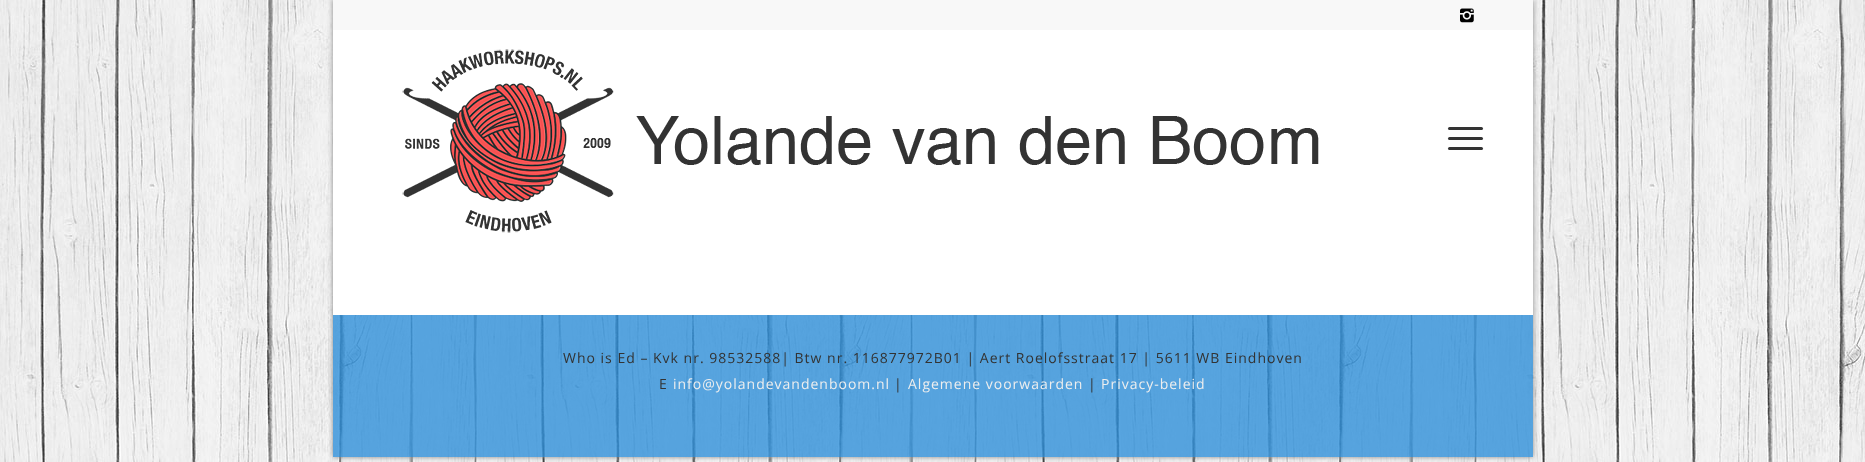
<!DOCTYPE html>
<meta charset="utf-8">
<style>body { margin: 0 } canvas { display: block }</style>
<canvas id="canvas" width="1865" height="462"></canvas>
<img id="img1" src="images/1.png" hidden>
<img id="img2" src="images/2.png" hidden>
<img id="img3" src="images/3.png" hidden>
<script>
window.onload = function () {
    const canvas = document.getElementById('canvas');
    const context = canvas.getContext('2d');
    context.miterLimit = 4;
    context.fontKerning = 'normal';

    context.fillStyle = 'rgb(255, 255, 255)';
    context.fillRect(0, 0, 1865, 462);
    context.drawImage(document.getElementById('img1'), 0, 0, 1865, 462);
    context.save();
    context.beginPath();
    context.moveTo(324, 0);
    context.lineTo(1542, 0);
    context.lineTo(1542, 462);
    context.lineTo(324, 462);
    context.closePath();
    context.moveTo(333, 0);
    context.lineTo(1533, 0);
    context.lineTo(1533, 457);
    context.lineTo(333, 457);
    context.closePath();
    context.clip('evenodd');
    context.fillStyle = 'rgb(136, 136, 136)';
    context.filter = 'blur(2.5px)';
    context.beginPath();
    context.rect(333, 0, 1200, 457);
    context.fill();
    context.filter = 'none';
    context.restore();
    context.fillStyle = 'rgb(248, 248, 248)';
    context.fillRect(333, 0, 1200, 30);
    context.drawImage(document.getElementById('img2'), 1460, 8, 14, 15);
    context.fillStyle = 'rgb(255, 255, 255)';
    context.fillRect(333, 30, 1200, 285);
    context.drawImage(document.getElementById('img3'), 402, 49, 917, 184);
    context.fillStyle = 'rgb(51, 51, 51)';
    context.beginPath();
    context.roundRect(1448, 137, 35, 3, 1.5);
    context.fill();
    context.beginPath();
    context.roundRect(1448, 127, 35, 3, 1.5);
    context.fill();
    context.beginPath();
    context.roundRect(1448, 147, 35, 3, 1.5);
    context.fill();
    context.fillStyle = 'rgba(48, 144, 217, 0.8)';
    context.fillRect(333, 315, 1200, 142);
    context.letterSpacing = '1px';
    context.font = '14px Open Sans';
    context.fillStyle = 'rgb(51, 51, 51)';
    context.fillText('Who is Ed – Kvk nr. 98532588| Btw nr. 116877972B01 | Aert Roelofsstraat 17 | 5611 WB Eindhoven', 563, 363);
    context.fillText('E', 659, 389);
    context.fillStyle = 'rgb(238, 238, 238)';
    context.fillText('info@yolandevandenboom.nl', 673, 389);
    context.fillStyle = 'rgb(51, 51, 51)';
    context.fillText('|', 894, 389);
    context.fillStyle = 'rgb(238, 238, 238)';
    context.fillText('Algemene voorwaarden', 908, 389);
    context.fillStyle = 'rgb(51, 51, 51)';
    context.fillText('|', 1088, 389);
    context.fillStyle = 'rgb(238, 238, 238)';
    context.fillText('Privacy-beleid', 1101, 389);
};
</script>
